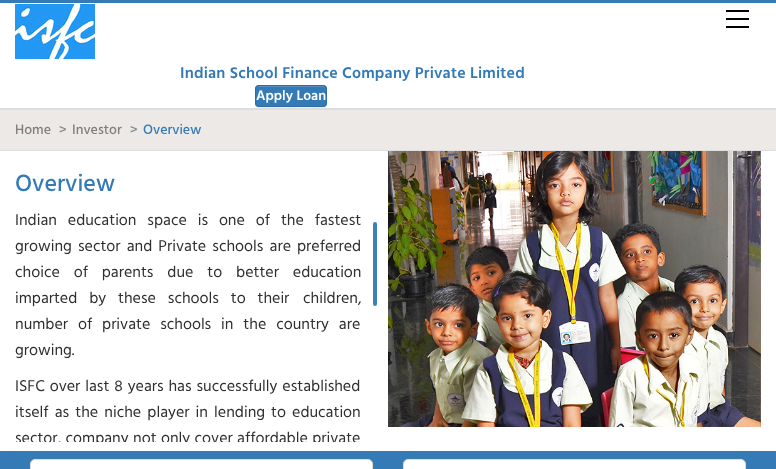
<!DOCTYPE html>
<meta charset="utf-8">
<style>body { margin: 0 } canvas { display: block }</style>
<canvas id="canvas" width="776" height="469"></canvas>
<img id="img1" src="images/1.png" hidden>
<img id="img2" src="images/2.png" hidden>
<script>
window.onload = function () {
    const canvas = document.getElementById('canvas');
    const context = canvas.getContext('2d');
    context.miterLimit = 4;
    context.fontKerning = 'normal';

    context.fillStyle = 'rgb(255, 255, 255)';
    context.fillRect(0, 0, 776, 469);
    context.fillStyle = 'rgb(221, 221, 221)';
    context.fillRect(0, 108, 776, 1);
    context.fillStyle = 'rgb(0, 0, 0)';
    context.fillRect(726, 18, 23, 2);
    context.fillRect(726, 10, 23, 2);
    context.fillRect(726, 26, 23, 2);
    context.fillStyle = 'rgb(51, 122, 183)';
    context.fillRect(0, 0, 776, 3);
    context.drawImage(document.getElementById('img1'), 15, 4, 80, 55);
    context.fillStyle = 'rgb(236, 233, 230)';
    context.fillRect(0, 110, 776, 40);
    context.fillStyle = 'rgb(222, 222, 222)';
    context.fillRect(0, 109, 776, 1);
    context.fillStyle = 'rgba(0, 0, 0, 0.07)';
    context.filter = 'blur(0.5px)';
    context.beginPath();
    context.roundRect(255, 86, 72, 22, 4);
    context.fill();
    context.filter = 'none';
    context.fillStyle = 'rgb(51, 122, 183)';
    context.beginPath();
    context.roundRect(255, 85, 72, 22, 4);
    context.fill();
    context.fillStyle = 'rgb(82, 142, 194)';
    context.beginPath();
    context.moveTo(259, 87);
    context.lineTo(323, 87);
    context.bezierCurveTo(325, 87, 326, 88, 326, 90);
    context.bezierCurveTo(326, 83, 317, 86, 312, 86);
    context.lineTo(270, 86);
    context.bezierCurveTo(265, 86, 256, 83, 256, 90);
    context.bezierCurveTo(256, 88, 257, 87, 259, 87);
    context.closePath();
    context.fill();
    context.beginPath();
    context.roundRect(255.5, 85.5, 71, 21, 3.5);
    context.strokeStyle = 'rgb(46, 109, 164)';
    context.stroke();
    context.fillStyle = 'rgb(222, 222, 222)';
    context.fillRect(0, 150, 776, 1);
    context.fillStyle = 'rgb(61, 129, 187)';
    context.beginPath();
    context.roundRect(373, 222, 4, 84, 2);
    context.fill();
    context.drawImage(document.getElementById('img2'), 388, 151, 373, 276);
    context.fillStyle = 'rgb(51, 122, 183)';
    context.fillRect(0, 451, 776, 18);
    context.fillStyle = 'rgba(128, 128, 128, 0.18)';
    context.filter = 'blur(0.5px)';
    context.beginPath();
    context.roundRect(29, 458, 345, 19, 6);
    context.fill();
    context.filter = 'none';
    context.fillStyle = 'rgb(255, 255, 255)';
    context.beginPath();
    context.roundRect(30.5, 459.5, 342, 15, 4.5);
    context.fill();
    context.strokeStyle = 'rgb(220, 220, 220)';
    context.stroke();
    context.fillStyle = 'rgba(128, 128, 128, 0.18)';
    context.filter = 'blur(0.5px)';
    context.beginPath();
    context.roundRect(402, 458, 345, 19, 6);
    context.fill();
    context.filter = 'none';
    context.fillStyle = 'rgb(255, 255, 255)';
    context.beginPath();
    context.roundRect(403.5, 459.5, 342, 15, 4.5);
    context.fill();
    context.stroke();
    context.letterSpacing = '0.2px';
    context.font = '600 16px Hind';
    context.fillStyle = 'rgb(51, 122, 183)';
    context.fillText('Indian School Finance Company Private Limited', 180, 78);
    context.letterSpacing = '0px';
    context.font = '600 14px Hind';
    context.fillStyle = 'rgb(255, 255, 255)';
    context.fillText('Apply Loan', 256, 100);
    context.font = '500 14px Hind';
    context.fillStyle = 'rgb(127, 127, 127)';
    context.fillText('Home', 15, 134);
    context.fillStyle = 'rgb(129, 138, 145)';
    context.fillText('>', 59, 134);
    context.fillStyle = 'rgb(127, 127, 127)';
    context.fillText('Investor', 72, 134);
    context.fillStyle = 'rgb(129, 138, 145)';
    context.fillText('>', 130, 134);
    context.fillStyle = 'rgb(51, 122, 183)';
    context.fillText('Overview', 143, 134);
    context.font = '500 24px Hind';
    context.fillText('Overview', 15, 191);
    context.wordSpacing = '7px';
    context.font = '16px Hind';
    context.fillStyle = 'rgb(47, 47, 47)';
    context.fillText('Indian education space is one of the fastest', 15, 225);
    context.wordSpacing = '2.25px';
    context.fillText('growing sector and Private schools are', 15, 251);
    context.wordSpacing = '0px';
    context.fillText('preferred', 297, 251);
    context.wordSpacing = '10px';
    context.fillText('choice of parents due to better education', 15, 277);
    context.wordSpacing = '8px';
    context.fillText('imparted by these schools to their', 15, 303);
    context.wordSpacing = '0px';
    context.fillText('children,', 303, 303);
    context.wordSpacing = '6px';
    context.fillText('number of private schools in the country are', 15, 329);
    context.wordSpacing = '0px';
    context.fillText('growing.', 15, 355);
    context.wordSpacing = '1px';
    context.fillText('ISFC over last 8 years has successfully established', 15, 391);
    context.wordSpacing = '2.25px';
    context.fillText('itself as the niche player in lending', 15, 417);
    context.fillText('to education', 271, 417);
    context.save();
    context.beginPath();
    context.rect(15, 207, 346, 235);
    context.clip();
    context.wordSpacing = '0.5px';
    context.fillText('sector, company not only cover affordable private', 15, 443);
    context.restore();
};
</script>
